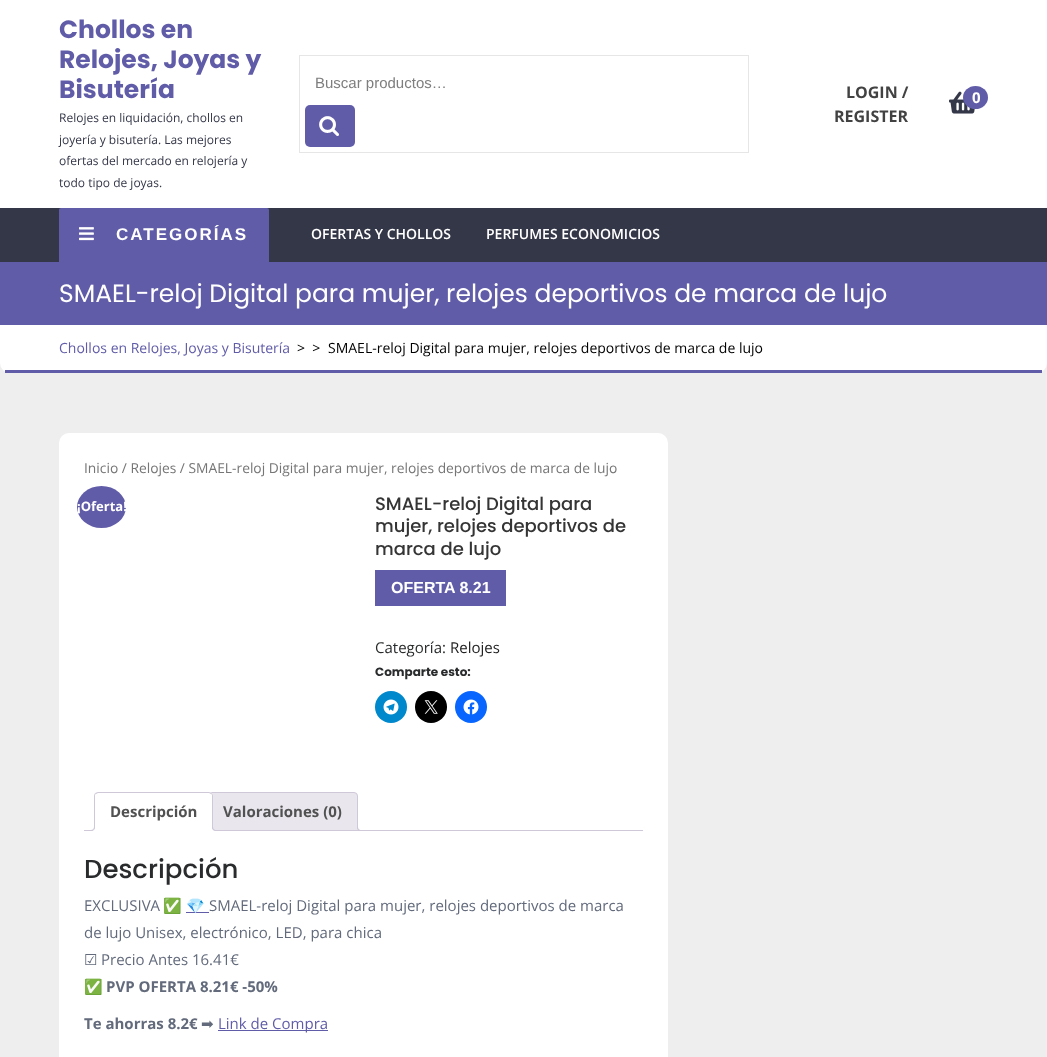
<!DOCTYPE html>
<meta charset="utf-8">
<style>body { margin: 0 } canvas { display: block }</style>
<canvas id="canvas" width="1047" height="1057"></canvas>
<img id="img1" src="images/1.png" hidden>
<img id="img2" src="images/2.png" hidden>
<img id="img3" src="images/3.png" hidden>
<img id="img4" src="images/4.png" hidden>
<img id="img5" src="images/5.png" hidden>
<img id="img6" src="images/6.png" hidden>
<script>
window.onload = function () {
    const canvas = document.getElementById('canvas');
    const context = canvas.getContext('2d');
    context.miterLimit = 4;
    context.fontKerning = 'normal';

    context.fillStyle = 'rgb(238, 238, 238)';
    context.fillRect(0, 0, 1047, 1057);
    context.fillStyle = 'rgb(255, 255, 255)';
    context.fillRect(0, 0, 1047, 208);
    context.strokeStyle = 'rgb(230, 230, 230)';
    context.strokeRect(299.5, 55.5, 449, 97);
    context.fillStyle = 'rgb(96, 92, 168)';
    context.beginPath();
    context.roundRect(305, 105, 50, 42, 5);
    context.fill();
    context.drawImage(document.getElementById('img1'), 319, 116, 20, 20);
    context.drawImage(document.getElementById('img2'), 949, 91, 26, 23);
    context.beginPath();
    context.ellipse(975.5, 97.5, 12.5, 11.5, 0, 0, 2 * Math.PI);
    context.fill();
    context.fillStyle = 'rgb(52, 55, 72)';
    context.fillRect(0, 208, 1047, 54);
    context.fillStyle = 'rgb(96, 92, 168)';
    context.beginPath();
    context.roundRect(59, 208, 210, 54, [2, 2, 0, 0]);
    context.fill();
    context.drawImage(document.getElementById('img3'), 79, 227, 15, 14);
    context.fillRect(0, 262, 1047, 63);
    context.fillStyle = 'rgb(255, 255, 255)';
    context.beginPath();
    context.roundRect(0, 325, 1047, 48, [0, 0, 10, 10]);
    context.fill();
    context.fillStyle = 'rgb(96, 92, 168)';
    context.fillRect(5, 370, 1037, 3);
    context.fillStyle = 'rgb(255, 255, 255)';
    context.beginPath();
    context.roundRect(59, 433, 609, 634, 10);
    context.fill();
    context.fillStyle = 'rgb(96, 92, 168)';
    context.beginPath();
    context.ellipse(101.5, 507, 24.5, 21, 0, 0, 2 * Math.PI);
    context.fill();
    context.fillRect(375, 570, 131, 36);
    context.fillStyle = 'rgb(0, 136, 204)';
    context.beginPath();
    context.arc(391, 707, 16, 0, 2 * Math.PI);
    context.fill();
    context.drawImage(document.getElementById('img4'), 383, 699, 16, 16);
    context.fillStyle = 'rgb(0, 0, 0)';
    context.beginPath();
    context.arc(431, 707, 16, 0, 2 * Math.PI);
    context.fill();
    context.drawImage(document.getElementById('img5'), 424, 700, 14, 14);
    context.fillStyle = 'rgb(8, 102, 255)';
    context.beginPath();
    context.arc(471, 707, 16, 0, 2 * Math.PI);
    context.fill();
    context.drawImage(document.getElementById('img6'), 463, 699, 16, 16);
    context.fillStyle = 'rgb(233, 230, 237)';
    context.beginPath();
    context.roundRect(207.5, 792.5, 150, 38, [3.5, 3.5, 0, 0]);
    context.fill();
    context.strokeStyle = 'rgb(207, 200, 216)';
    context.stroke();
    context.save();
    context.beginPath();
    context.rect(84, 792, 559, 39);
    context.clip();
    context.beginPath();
    context.moveTo(355, 828);
    context.bezierCurveTo(355, 831.5, 356.5, 833, 360, 833);
    context.lineTo(360, 831);
    context.bezierCurveTo(358.5, 830.5, 357.5, 829.5, 357, 828);
    context.closePath();
    context.fill();
    context.restore();
    context.fillStyle = 'rgb(207, 200, 216)';
    context.beginPath();
    context.moveTo(357, 826);
    context.lineTo(362, 826);
    context.lineTo(362, 831);
    context.bezierCurveTo(359.5, 831, 357, 830, 357, 827);
    context.closePath();
    context.moveTo(358, 826);
    context.lineTo(362, 826);
    context.lineTo(362, 830);
    context.bezierCurveTo(360, 830, 358, 829.5, 358, 827);
    context.closePath();
    context.fill('evenodd');
    context.fillRect(84, 830, 559, 1);
    context.fillStyle = 'rgb(255, 255, 255)';
    context.beginPath();
    context.roundRect(94, 792, 119, 39, [4, 4, 0, 0]);
    context.fill();
    context.fillStyle = 'rgb(207, 200, 216)';
    context.beginPath();
    context.moveTo(98, 792);
    context.lineTo(95, 793);
    context.lineTo(96, 794);
    context.lineTo(98, 793);
    context.lineTo(209, 793);
    context.lineTo(211, 794);
    context.lineTo(212, 793);
    context.lineTo(209, 792);
    context.closePath();
    context.fill();
    context.beginPath();
    context.moveTo(213, 831);
    context.lineTo(213, 796);
    context.bezierCurveTo(213, 795, 212.5, 794, 212, 793);
    context.lineTo(211, 794);
    context.bezierCurveTo(212, 794, 212, 795, 212, 796);
    context.lineTo(212, 830);
    context.closePath();
    context.fill();
    context.fillStyle = 'rgb(255, 255, 255)';
    context.beginPath();
    context.moveTo(213, 831);
    context.lineTo(212, 830);
    context.lineTo(95, 830);
    context.lineTo(94, 831);
    context.closePath();
    context.fill();
    context.fillStyle = 'rgb(207, 200, 216)';
    context.beginPath();
    context.moveTo(94, 831);
    context.lineTo(95, 830);
    context.lineTo(95, 796);
    context.bezierCurveTo(95, 795, 95, 794, 96, 794);
    context.lineTo(95, 793);
    context.bezierCurveTo(94.5, 794, 94, 795, 94, 796);
    context.closePath();
    context.fill();
    context.save();
    context.beginPath();
    context.rect(84, 792, 559, 39);
    context.clip();
    context.fillStyle = 'rgb(255, 255, 255)';
    context.beginPath();
    context.moveTo(92, 831);
    context.lineTo(92, 833);
    context.bezierCurveTo(95.5, 833, 97, 831.5, 97, 828);
    context.lineTo(95, 828);
    context.bezierCurveTo(94.5, 829.5, 93.5, 830.5, 92, 831);
    context.closePath();
    context.fill();
    context.restore();
    context.beginPath();
    context.moveTo(90, 826);
    context.lineTo(95, 826);
    context.bezierCurveTo(95, 829.5, 93.5, 831, 90, 831);
    context.closePath();
    context.moveTo(90, 826);
    context.lineTo(94, 826);
    context.bezierCurveTo(94, 829, 93, 830, 90, 830);
    context.closePath();
    context.fill('evenodd');
    context.save();
    context.beginPath();
    context.rect(84, 792, 559, 39);
    context.clip();
    context.fillStyle = 'rgb(255, 255, 255)';
    context.beginPath();
    context.moveTo(210, 828);
    context.bezierCurveTo(210, 831.5, 211.5, 833, 215, 833);
    context.lineTo(215, 831);
    context.bezierCurveTo(213.5, 830.5, 212.5, 829.5, 212, 828);
    context.closePath();
    context.fill();
    context.restore();
    context.beginPath();
    context.moveTo(212, 826);
    context.lineTo(217, 826);
    context.lineTo(217, 831);
    context.bezierCurveTo(214.5, 831, 212, 830, 212, 827);
    context.closePath();
    context.moveTo(213, 826);
    context.lineTo(217, 826);
    context.lineTo(217, 830);
    context.bezierCurveTo(215, 830, 213, 829.5, 213, 827);
    context.closePath();
    context.fill('evenodd');
    context.fillStyle = 'rgb(96, 92, 168)';
    context.fillRect(186, 912, 23, 1);
    context.fillRect(218, 1030, 110, 1);
    context.font = 'bold 25px Poppins';
    context.fillText('Chollos en', 59, 38);
    context.fillText('Relojes, Joyas y', 59, 68);
    context.fillText('Bisutería', 59, 98);
    context.font = '12px Open Sans';
    context.fillStyle = 'rgb(52, 55, 72)';
    context.fillText('Relojes en liquidación, chollos en', 59, 122);
    context.fillText('joyería y bisutería. Las mejores', 59, 144);
    context.fillText('ofertas del mercado en relojería y', 59, 165);
    context.fillText('todo tipo de joyas.', 59, 187);
    context.font = '15px Liberation Sans';
    context.fillStyle = 'rgb(126, 126, 126)';
    context.fillText('Buscar productos…', 315, 88);
    context.font = 'bold 16px Open Sans';
    context.fillStyle = 'rgb(66, 66, 66)';
    context.fillText('LOGIN /', 846, 98);
    context.fillText('REGISTER', 834, 122);
    context.font = 'bold 15px Open Sans';
    context.fillStyle = 'rgb(255, 255, 255)';
    context.fillText('0', 972, 103);
    context.letterSpacing = '2px';
    context.font = 'bold 17px Liberation Sans';
    context.fillText('CATEGORÍAS', 116, 240);
    context.letterSpacing = '0px';
    context.font = '600 14px Open Sans';
    context.fillText('OFERTAS Y CHOLLOS', 311, 239);
    context.fillText('PERFUMES ECONOMICIOS', 486, 239);
    context.font = '25px Poppins';
    context.fillText('SMAEL-reloj Digital para mujer, relojes deportivos de marca de lujo', 59, 302);
    context.font = '14px Open Sans';
    context.fillStyle = 'rgb(96, 92, 168)';
    context.fillText('Chollos en Relojes, Joyas y Bisutería', 59, 353);
    context.fillStyle = 'rgb(0, 0, 0)';
    context.fillText('>  >', 297, 353);
    context.fillText('SMAEL-reloj Digital para mujer, relojes deportivos de marca de lujo', 328, 353);
    context.font = '13.8px Open Sans';
    context.fillStyle = 'rgb(118, 118, 118)';
    context.fillText('Inicio / Relojes / SMAEL-reloj Digital para mujer, relojes deportivos de marca de lujo', 84, 473);
    context.font = 'bold 13px Open Sans';
    context.fillStyle = 'rgb(255, 255, 255)';
    context.fillText('¡Oferta!', 77, 511);
    context.font = '500 18px Poppins';
    context.fillStyle = 'rgb(53, 53, 53)';
    context.fillText('SMAEL-reloj Digital para', 375, 510);
    context.fillText('mujer, relojes deportivos de', 375, 532);
    context.fillText('marca de lujo', 375, 555);
    context.font = 'bold 16px Liberation Sans';
    context.fillStyle = 'rgb(255, 255, 255)';
    context.fillText('OFERTA 8.21', 391, 593);
    context.font = '15px Open Sans';
    context.fillStyle = 'rgb(41, 43, 44)';
    context.fillText('Categoría:', 375, 653);
    context.fillStyle = 'rgb(34, 34, 34)';
    context.fillText('Relojes', 450, 653);
    context.font = 'bold 12px Poppins';
    context.fillStyle = 'rgb(41, 43, 44)';
    context.fillText('Comparte esto:', 375, 676);
    context.font = 'bold 15px Open Sans';
    context.fillStyle = 'rgb(81, 81, 81)';
    context.fillText('Descripción', 110, 817);
    context.fillText('Valoraciones (0)', 223, 817);
    context.font = '500 26px Poppins';
    context.fillStyle = 'rgb(41, 43, 44)';
    context.fillText('Descripción', 84, 878);
    context.font = '15px Open Sans';
    context.fillStyle = 'rgb(98, 106, 123)';
    context.fillText('EXCLUSIVA', 84, 911);
    context.font = '15px Noto Color Emoji';
    context.fillText('✅', 163, 911);
    context.fillStyle = 'rgb(96, 92, 168)';
    context.fillText('💎', 186, 911);
    context.font = '15px Open Sans';
    context.fillStyle = 'rgb(98, 106, 123)';
    context.fillText('SMAEL-reloj Digital para mujer, relojes deportivos de marca', 209, 911);
    context.fillText('de lujo Unisex, electrónico, LED, para chica', 84, 938);
    context.font = '15px DejaVu Sans';
    context.fillText('☑', 84, 965);
    context.font = '15px Open Sans';
    context.fillText('Precio Antes 16.41€', 101, 965);
    context.font = '15px Noto Color Emoji';
    context.fillText('✅', 84, 992);
    context.font = 'bold 15px Open Sans';
    context.fillText('PVP OFERTA 8.21€ -50%', 106, 992);
    context.fillText('Te ahorras 8.2€', 84, 1029);
    context.font = '15px DejaVu Sans';
    context.fillText('➡', 201, 1029);
    context.font = '15px Open Sans';
    context.fillStyle = 'rgb(96, 92, 168)';
    context.fillText('Link de Compra', 218, 1029);
};
</script>
